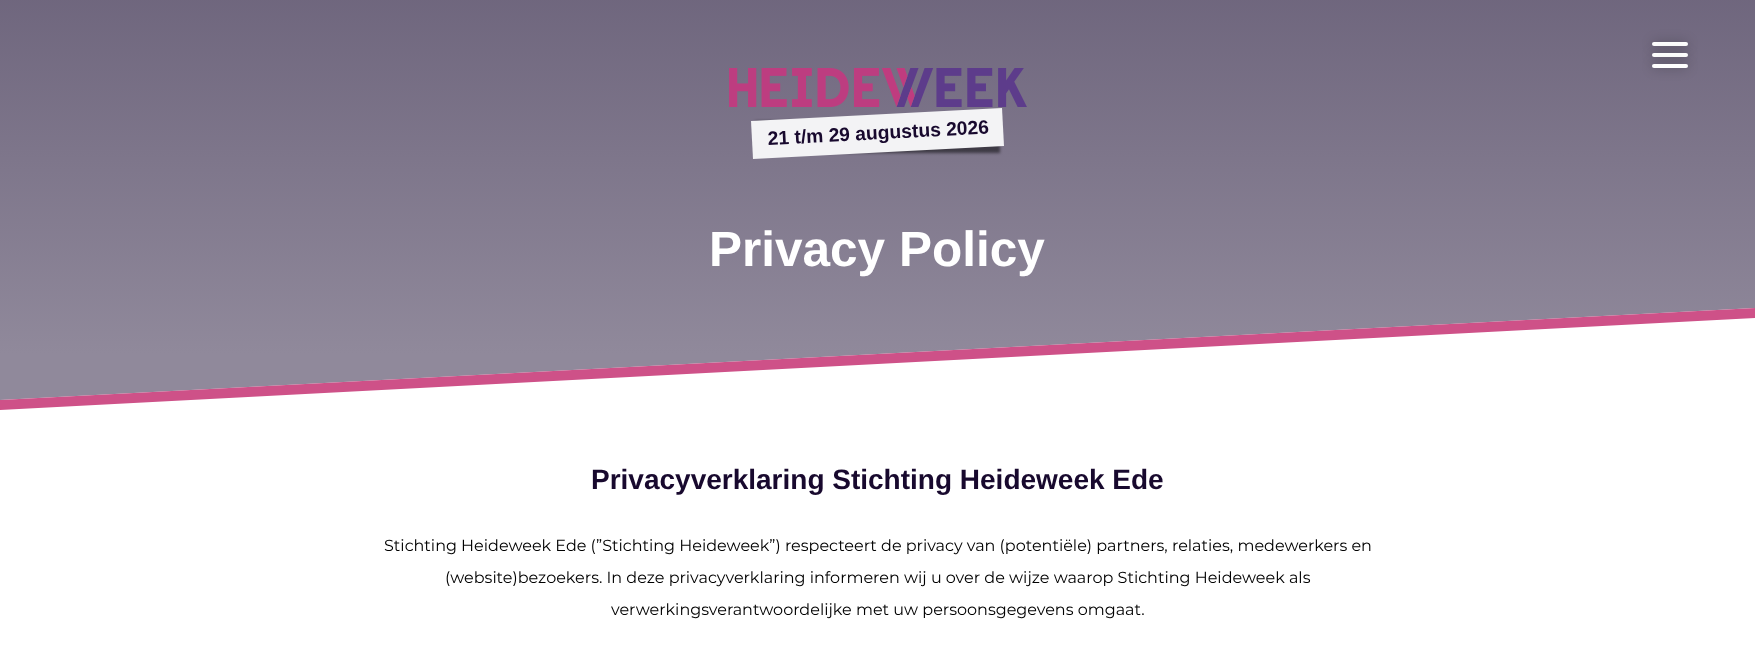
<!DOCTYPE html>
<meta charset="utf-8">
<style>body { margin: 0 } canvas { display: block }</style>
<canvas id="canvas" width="1755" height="665"></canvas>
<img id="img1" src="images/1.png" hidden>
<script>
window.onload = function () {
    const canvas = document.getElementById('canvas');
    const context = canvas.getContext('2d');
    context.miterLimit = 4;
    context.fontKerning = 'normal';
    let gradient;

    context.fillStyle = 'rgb(255, 255, 255)';
    context.fillRect(0, 0, 1755, 665);
    gradient = context.createLinearGradient(878, 354, 878, -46);
    gradient.addColorStop(0, 'rgb(144, 137, 155)');
    gradient.addColorStop(1, 'rgb(107, 98, 122)');
    context.fillStyle = gradient;
    context.beginPath();
    context.moveTo(0, 0);
    context.lineTo(0, 400);
    context.lineTo(1755, 308);
    context.lineTo(1755, -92);
    context.closePath();
    context.fill();
    context.fillStyle = 'rgba(0, 0, 0, 0.3)';
    context.filter = 'blur(6px)';
    context.beginPath();
    context.roundRect(1652, 42, 36, 4, 2);
    context.fill();
    context.filter = 'none';
    context.fillStyle = 'rgb(255, 255, 255)';
    context.beginPath();
    context.roundRect(1652, 42, 36, 4, 2);
    context.fill();
    context.fillStyle = 'rgba(0, 0, 0, 0.3)';
    context.filter = 'blur(6px)';
    context.beginPath();
    context.roundRect(1652, 53, 36, 4, 2);
    context.fill();
    context.filter = 'none';
    context.fillStyle = 'rgb(255, 255, 255)';
    context.beginPath();
    context.roundRect(1652, 53, 36, 4, 2);
    context.fill();
    context.fillStyle = 'rgba(0, 0, 0, 0.3)';
    context.filter = 'blur(6px)';
    context.beginPath();
    context.roundRect(1652, 64, 36, 4, 2);
    context.fill();
    context.filter = 'none';
    context.fillStyle = 'rgb(255, 255, 255)';
    context.beginPath();
    context.roundRect(1652, 64, 36, 4, 2);
    context.fill();
    context.fillStyle = 'rgb(206, 81, 136)';
    context.beginPath();
    context.moveTo(0, 400);
    context.lineTo(1755, 308);
    context.lineTo(1755, 318);
    context.lineTo(0, 410);
    context.closePath();
    context.fill();
    context.drawImage(document.getElementById('img1'), 729, 68, 298, 39);
    context.fillStyle = 'rgba(0, 0, 0, 0.5)';
    context.filter = 'blur(1.5px)';
    context.beginPath();
    context.rect(755, 121, 245, 32);
    context.fill();
    context.filter = 'none';
    context.fillStyle = 'rgb(243, 243, 245)';
    context.beginPath();
    context.moveTo(751, 121);
    context.lineTo(1002, 108);
    context.lineTo(1004, 146);
    context.lineTo(753, 159);
    context.closePath();
    context.fill();
    context.font = 'bold 19.25px Liberation Sans';
    context.fillStyle = 'rgb(24, 9, 46)';
    context.save();
    context.translate(768, 145);
    context.rotate(-3 * Math.PI / 180);
    context.fillText('21 t/m 29 augustus 2026', 0, 0);
    context.restore();
    context.font = 'bold 49.5px Liberation Sans';
    context.fillStyle = 'rgb(255, 255, 255)';
    context.fillText('Privacy Policy', 709, 266);
    context.font = 'bold 28px Liberation Sans';
    context.fillStyle = 'rgb(24, 9, 46)';
    context.fillText('Privacyverklaring Stichting Heideweek Ede', 591, 489);
    context.font = '16px Montserrat';
    context.fillStyle = 'rgb(0, 0, 0)';
    context.fillText('Stichting Heideweek Ede (”Stichting Heideweek”) respecteert de privacy van (potentiële) partners, relaties, medewerkers en', 384, 551);
    context.fillText('(website)bezoekers. In deze privacyverklaring informeren wij u over de wijze waarop Stichting Heideweek als', 445, 583);
    context.fillText('verwerkingsverantwoordelijke met uw persoonsgegevens omgaat.', 611, 615);
};
</script>
